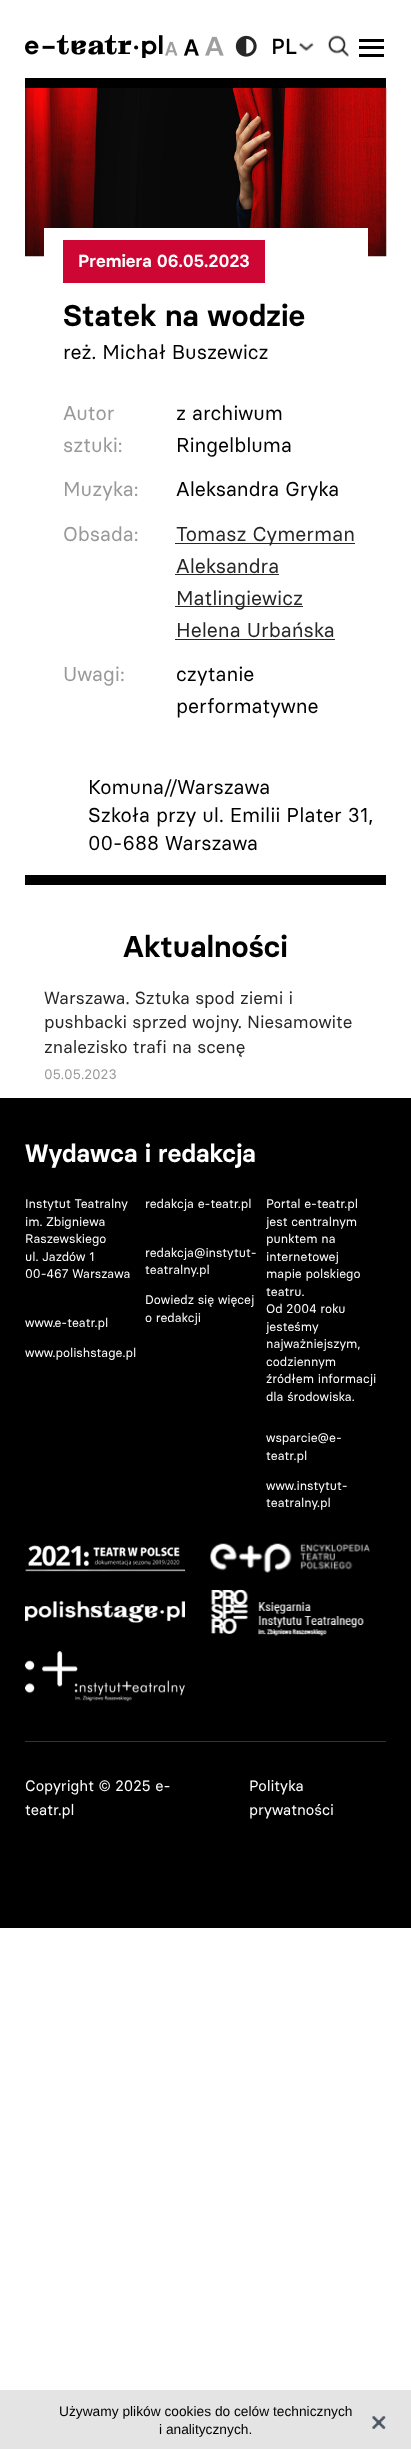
<!DOCTYPE html>
<meta charset="utf-8">
<style>body { margin: 0 } canvas { display: block }</style>
<canvas id="canvas" width="411" height="2449"></canvas>
<img id="img1" src="images/1.png" hidden>
<img id="img2" src="images/2.png" hidden>
<img id="img3" src="images/3.png" hidden>
<img id="img4" src="images/4.png" hidden>
<img id="img5" src="images/5.png" hidden>
<img id="img6" src="images/6.png" hidden>
<img id="img7" src="images/7.png" hidden>
<img id="img8" src="images/8.png" hidden>
<img id="img9" src="images/9.png" hidden>
<img id="img10" src="images/10.png" hidden>
<img id="img11" src="images/11.png" hidden>
<img id="img12" src="images/12.png" hidden>
<img id="img13" src="images/13.png" hidden>
<img id="img14" src="images/14.png" hidden>
<script>
window.onload = function () {
    const canvas = document.getElementById('canvas');
    const context = canvas.getContext('2d');
    context.miterLimit = 4;
    context.fontKerning = 'normal';

    context.fillStyle = 'rgb(255, 255, 255)';
    context.fillRect(0, 0, 411, 2449);
    context.drawImage(document.getElementById('img1'), 25, 35, 138, 23);
    context.drawImage(document.getElementById('img2'), 165, 41, 13, 15);
    context.drawImage(document.getElementById('img3'), 183, 39, 16, 17);
    context.drawImage(document.getElementById('img4'), 205, 36, 19, 20);
    context.drawImage(document.getElementById('img5'), 235, 35, 22, 22);
    context.drawImage(document.getElementById('img6'), 299, 42, 15, 10);
    context.drawImage(document.getElementById('img7'), 328, 35, 21, 22);
    context.fillStyle = 'rgb(0, 0, 0)';
    context.fillRect(359, 39, 25, 3);
    context.fillRect(359, 46, 25, 3);
    context.fillRect(359, 54, 25, 3);
    context.fillRect(25, 78, 361, 10);
    context.drawImage(document.getElementById('img8'), 25, 88, 362, 169);
    context.fillStyle = 'rgb(255, 255, 255)';
    context.fillRect(44, 228, 324, 29);
    context.fillStyle = 'rgb(206, 6, 52)';
    context.fillRect(63, 240, 202, 43);
    context.fillStyle = 'rgb(39, 39, 39)';
    context.fillRect(175, 543, 180, 1);
    context.fillRect(175, 574, 104, 1);
    context.fillRect(175, 606, 128, 1);
    context.fillRect(175, 639, 160, 1);
    context.fillStyle = 'rgb(0, 0, 0)';
    context.fillRect(25, 875, 361, 10);
    context.fillRect(0, 1098, 411, 830);
    context.drawImage(document.getElementById('img9'), 25, 1545, 160, 27);
    context.drawImage(document.getElementById('img10'), 210, 1543, 160, 30);
    context.drawImage(document.getElementById('img11'), 25, 1601, 160, 22);
    context.drawImage(document.getElementById('img12'), 210, 1589, 154, 47);
    context.drawImage(document.getElementById('img13'), 25, 1651, 160, 51);
    context.fillStyle = 'rgb(51, 51, 51)';
    context.fillRect(25, 1741, 361, 1);
    context.fillStyle = 'rgb(228, 228, 228)';
    context.fillRect(0, 2390, 411, 59);
    context.drawImage(document.getElementById('img14'), 372, 2416, 14, 13);
    context.font = 'bold 21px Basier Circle';
    context.fillStyle = 'rgb(0, 0, 0)';
    context.fillText('PL', 271, 54);
    context.font = '600 17.5px Basier Circle';
    context.fillStyle = 'rgb(255, 255, 255)';
    context.fillText('Premiera 06.05.2023', 78, 267);
    context.font = '600 30px Basier Circle';
    context.fillStyle = 'rgb(0, 0, 0)';
    context.fillText('Statek na wodzie', 63, 326);
    context.font = '20px Basier Circle';
    context.fillText('reż. Michał Buszewicz', 63, 359);
    context.fillStyle = 'rgb(153, 153, 153)';
    context.fillText('Autor', 63, 420);
    context.fillText('sztuki:', 63, 452);
    context.fillStyle = 'rgb(0, 0, 0)';
    context.fillText('z archiwum', 176, 420);
    context.fillText('Ringelbluma', 176, 452);
    context.fillStyle = 'rgb(153, 153, 153)';
    context.fillText('Muzyka:', 63, 496);
    context.fillStyle = 'rgb(0, 0, 0)';
    context.fillText('Aleksandra Gryka', 176, 496);
    context.fillStyle = 'rgb(153, 153, 153)';
    context.fillText('Obsada:', 63, 541);
    context.fillStyle = 'rgb(39, 39, 39)';
    context.fillText('Tomasz Cymerman', 176, 541);
    context.fillText('Aleksandra', 176, 573);
    context.fillText('Matlingiewicz', 176, 605);
    context.fillText('Helena Urbańska', 176, 637);
    context.fillStyle = 'rgb(153, 153, 153)';
    context.fillText('Uwagi:', 63, 681);
    context.fillStyle = 'rgb(0, 0, 0)';
    context.fillText('czytanie', 176, 681);
    context.fillText('performatywne', 176, 713);
    context.fillText('Komuna//Warszawa', 88, 794);
    context.fillText('Szkoła przy ul. Emilii Plater 31,', 88, 822);
    context.fillText('00-688 Warszawa', 88, 850);
    context.font = '600 30px Basier Circle';
    context.fillText('Aktualności', 123, 957);
    context.font = '17.5px Basier Circle';
    context.fillStyle = 'rgb(39, 39, 39)';
    context.fillText('Warszawa. Sztuka spod ziemi i', 44, 1004);
    context.fillText('pushbacki sprzed wojny. Niesamowite', 44, 1028);
    context.fillText('znalezisko trafi na scenę', 44, 1053);
    context.font = '13.75px Basier Circle';
    context.fillStyle = 'rgb(153, 153, 153)';
    context.fillText('05.05.2023', 44, 1079);
    context.font = '600 25px Basier Circle';
    context.fillStyle = 'rgb(255, 255, 255)';
    context.fillText('Wydawca i redakcja', 25, 1162);
    context.font = '12.5px Basier Circle';
    context.fillText('Instytut Teatralny', 25, 1208);
    context.fillText('im. Zbigniewa', 25, 1226);
    context.fillText('Raszewskiego', 25, 1243);
    context.fillText('ul. Jazdów 1', 25, 1261);
    context.fillText('00-467 Warszawa', 25, 1278);
    context.fillText('www.e-teatr.pl', 25, 1327);
    context.fillText('www.polishstage.pl', 25, 1357);
    context.fillText('redakcja e-teatr.pl', 145, 1208);
    context.fillText('redakcja@instytut-', 145, 1257);
    context.fillText('teatralny.pl', 145, 1274);
    context.fillText('Dowiedz się więcej', 145, 1304);
    context.fillText('o redakcji', 145, 1322);
    context.fillText('Portal e-teatr.pl', 266, 1208);
    context.fillText('jest centralnym', 266, 1226);
    context.fillText('punktem na', 266, 1243);
    context.fillText('internetowej', 266, 1261);
    context.fillText('mapie polskiego', 266, 1278);
    context.fillText('teatru.', 266, 1296);
    context.fillText('Od 2004 roku', 266, 1313);
    context.fillText('jesteśmy', 266, 1331);
    context.fillText('najważniejszym,', 266, 1348);
    context.fillText('codziennym', 266, 1366);
    context.fillText('źródłem informacji', 266, 1383);
    context.fillText('dla środowiska.', 266, 1401);
    context.fillText('wsparcie@e-', 266, 1442);
    context.fillText('teatr.pl', 266, 1460);
    context.fillText('www.instytut-', 266, 1490);
    context.fillText('teatralny.pl', 266, 1507);
    context.font = '15px Basier Circle';
    context.fillText('Copyright © 2025 e-', 25, 1791);
    context.fillText('teatr.pl', 25, 1815);
    context.fillText('Polityka', 249, 1791);
    context.fillText('prywatności', 249, 1815);
    context.font = '13.75px Liberation Sans';
    context.fillStyle = 'rgb(0, 0, 0)';
    context.fillText('Używamy plików cookies do celów technicznych', 59, 2416);
    context.fillText('i analitycznych.', 159, 2434);
};
</script>
